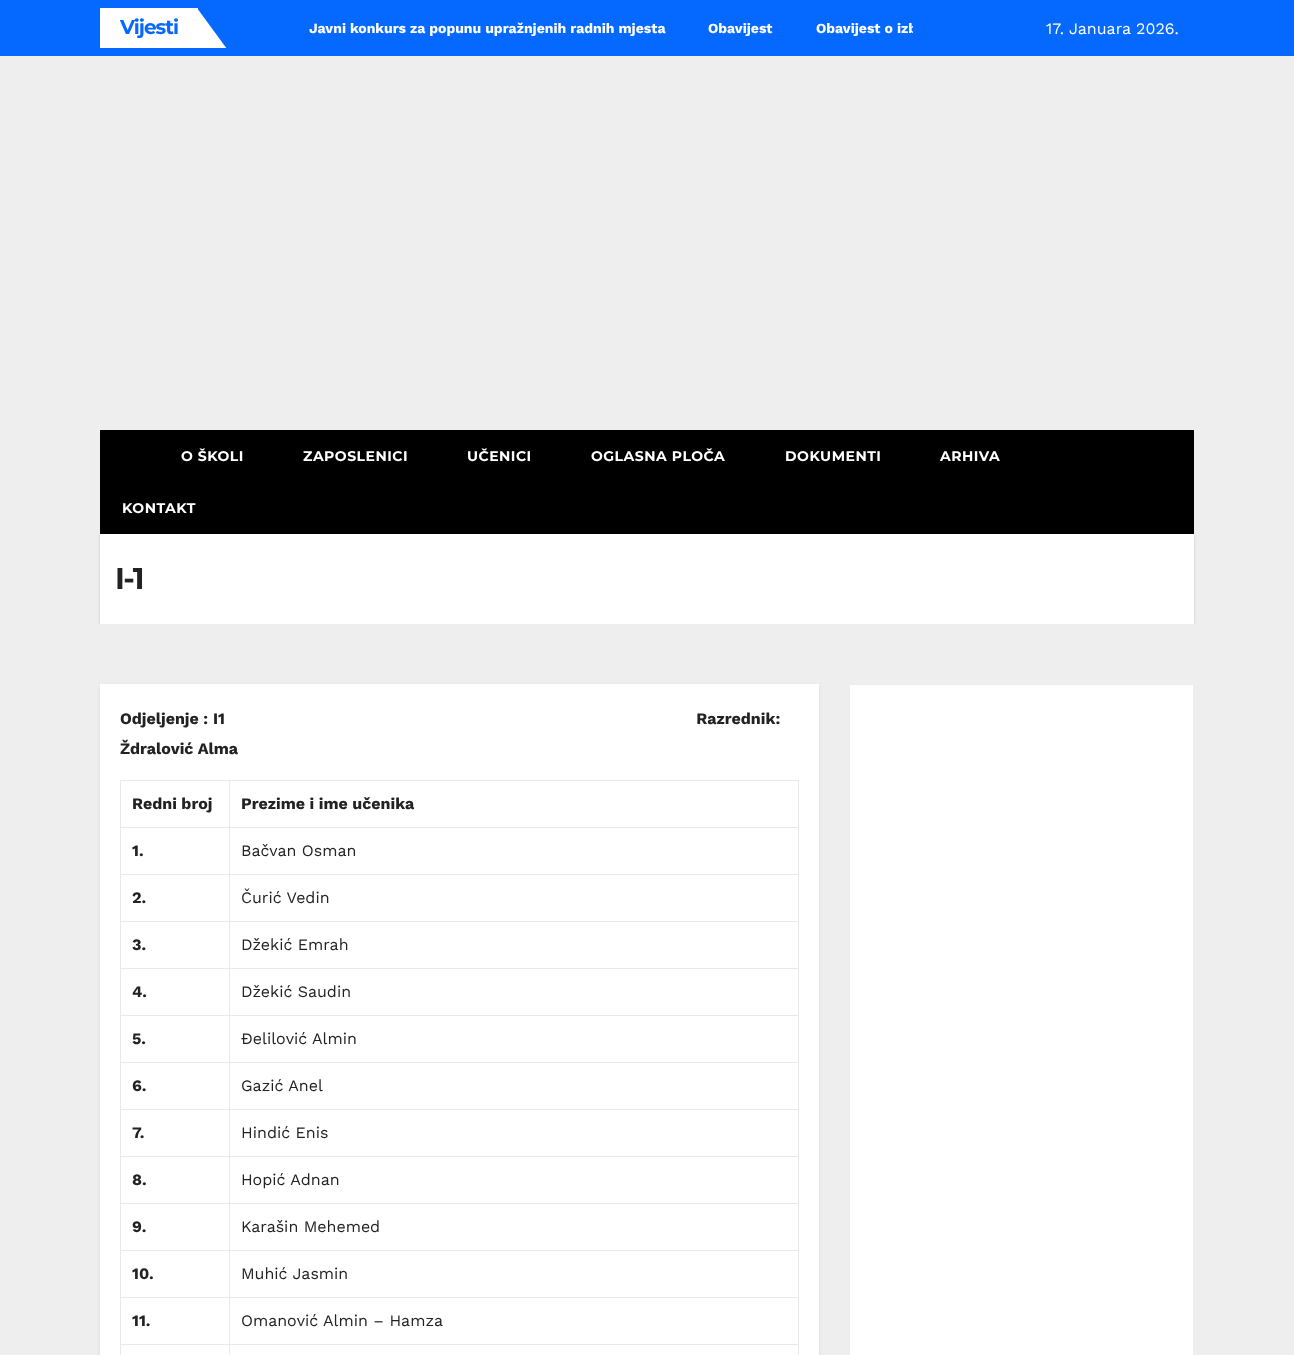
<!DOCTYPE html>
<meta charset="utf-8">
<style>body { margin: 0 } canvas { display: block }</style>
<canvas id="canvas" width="1294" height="1355"></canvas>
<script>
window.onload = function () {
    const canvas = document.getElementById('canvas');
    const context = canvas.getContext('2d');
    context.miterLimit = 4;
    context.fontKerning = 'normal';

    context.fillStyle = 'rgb(238, 238, 238)';
    context.fillRect(0, 0, 1294, 1355);
    context.fillStyle = 'rgb(6, 105, 255)';
    context.fillRect(0, 0, 1294, 56);
    context.fillStyle = 'rgb(255, 255, 255)';
    context.fillRect(100, 8, 98, 40);
    context.save();
    context.beginPath();
    context.rect(100, 8, 813, 40);
    context.clip();
    context.beginPath();
    context.moveTo(197, 49);
    context.lineTo(197, 8);
    context.lineTo(227, 49);
    context.closePath();
    context.fill();
    context.restore();
    context.fillStyle = 'rgb(0, 0, 0)';
    context.fillRect(100, 430, 1094, 104);
    context.save();
    context.beginPath();
    context.rect(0, 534, 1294, 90);
    context.clip();
    context.fillStyle = 'rgba(0, 0, 0, 0.15)';
    context.filter = 'blur(1.5px)';
    context.beginPath();
    context.rect(100, 535, 1094, 90);
    context.fill();
    context.filter = 'none';
    context.restore();
    context.fillStyle = 'rgb(255, 255, 255)';
    context.fillRect(100, 534, 1094, 90);
    context.fillStyle = 'rgba(0, 0, 0, 0.08)';
    context.filter = 'blur(2px)';
    context.beginPath();
    context.rect(100, 686, 719, 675);
    context.fill();
    context.filter = 'none';
    context.fillStyle = 'rgb(255, 255, 255)';
    context.fillRect(100, 684, 719, 671);
    context.fillStyle = 'rgb(233, 233, 233)';
    context.fillRect(120, 780, 679, 1);
    context.fillRect(798, 780, 1, 575);
    context.fillRect(120, 780, 1, 575);
    context.fillRect(229, 827, 570, 1);
    context.fillRect(229, 874, 570, 1);
    context.fillRect(229, 921, 570, 1);
    context.fillRect(229, 968, 570, 1);
    context.fillRect(229, 1015, 570, 1);
    context.fillRect(229, 1062, 570, 1);
    context.fillRect(229, 1109, 570, 1);
    context.fillRect(229, 1156, 570, 1);
    context.fillRect(229, 1203, 570, 1);
    context.fillRect(229, 1250, 570, 1);
    context.fillRect(229, 1297, 570, 1);
    context.fillRect(229, 1344, 570, 1);
    context.fillRect(229, 1344, 1, 11);
    context.fillRect(120, 1344, 110, 1);
    context.fillRect(229, 1297, 1, 48);
    context.fillRect(120, 1297, 110, 1);
    context.fillRect(229, 1250, 1, 48);
    context.fillRect(120, 1250, 110, 1);
    context.fillRect(229, 1203, 1, 48);
    context.fillRect(120, 1203, 110, 1);
    context.fillRect(229, 1156, 1, 48);
    context.fillRect(120, 1156, 110, 1);
    context.fillRect(229, 1109, 1, 48);
    context.fillRect(120, 1109, 110, 1);
    context.fillRect(229, 1062, 1, 48);
    context.fillRect(120, 1062, 110, 1);
    context.fillRect(229, 1015, 1, 48);
    context.fillRect(120, 1015, 110, 1);
    context.fillRect(229, 968, 1, 48);
    context.fillRect(120, 968, 110, 1);
    context.fillRect(229, 921, 1, 48);
    context.fillRect(120, 921, 110, 1);
    context.fillRect(229, 874, 1, 48);
    context.fillRect(120, 874, 110, 1);
    context.fillRect(229, 827, 1, 48);
    context.fillRect(120, 827, 110, 1);
    context.fillRect(229, 780, 1, 48);
    context.fillStyle = 'rgb(255, 255, 255)';
    context.fillRect(850, 685, 343, 670);
    context.letterSpacing = '-1px';
    context.font = 'bold 20px Montserrat';
    context.fillStyle = 'rgb(6, 105, 255)';
    context.fillText('Vijesti', 120, 34);
    context.letterSpacing = '0px';
    context.font = 'bold 14px Work Sans';
    context.fillStyle = 'rgb(255, 255, 255)';
    context.fillText('Javni konkurs za popunu upražnjenih radnih mjesta', 309, 33);
    context.fillText('Obavijest', 708, 33);
    context.save();
    context.beginPath();
    context.rect(270, 13, 643, 35);
    context.clip();
    context.fillText('Obavijest o izb', 816, 33);
    context.restore();
    context.font = '16px Work Sans';
    context.fillText('17. Januara 2026.', 1046, 34);
    context.letterSpacing = '0.5px';
    context.font = 'bold 14px Montserrat';
    context.fillText('O ŠKOLI', 181, 461);
    context.fillText('ZAPOSLENICI', 303, 461);
    context.fillText('UČENICI', 467, 461);
    context.fillText('OGLASNA PLOČA', 591, 461);
    context.fillText('DOKUMENTI', 785, 461);
    context.fillText('ARHIVA', 940, 461);
    context.fillText('KONTAKT', 122, 513);
    context.letterSpacing = '-1.5px';
    context.font = 'bold 30px Montserrat';
    context.fillStyle = 'rgb(34, 34, 34)';
    context.fillText('I-1', 115, 589);
    context.letterSpacing = '0px';
    context.font = 'bold 16px Work Sans';
    context.fillText('Odjeljenje : I1                                                                                                       Razrednik:', 120, 724);
    context.fillText('Ždralović Alma', 120, 754);
    context.fillText('Redni broj', 132, 809);
    context.fillText('Prezime i ime učenika', 241, 809);
    context.fillText('1.', 132, 856);
    context.font = '16px Work Sans';
    context.fillText('Bačvan Osman', 241, 856);
    context.font = 'bold 16px Work Sans';
    context.fillText('2.', 132, 903);
    context.font = '16px Work Sans';
    context.fillText('Čurić Vedin', 241, 903);
    context.font = 'bold 16px Work Sans';
    context.fillText('3.', 132, 950);
    context.font = '16px Work Sans';
    context.fillText('Džekić Emrah', 241, 950);
    context.font = 'bold 16px Work Sans';
    context.fillText('4.', 132, 997);
    context.font = '16px Work Sans';
    context.fillText('Džekić Saudin', 241, 997);
    context.font = 'bold 16px Work Sans';
    context.fillText('5.', 132, 1044);
    context.font = '16px Work Sans';
    context.fillText('Đelilović Almin', 241, 1044);
    context.font = 'bold 16px Work Sans';
    context.fillText('6.', 132, 1091);
    context.font = '16px Work Sans';
    context.fillText('Gazić Anel', 241, 1091);
    context.font = 'bold 16px Work Sans';
    context.fillText('7.', 132, 1138);
    context.font = '16px Work Sans';
    context.fillText('Hindić Enis', 241, 1138);
    context.font = 'bold 16px Work Sans';
    context.fillText('8.', 132, 1185);
    context.font = '16px Work Sans';
    context.fillText('Hopić Adnan', 241, 1185);
    context.font = 'bold 16px Work Sans';
    context.fillText('9.', 132, 1232);
    context.font = '16px Work Sans';
    context.fillText('Karašin Mehemed', 241, 1232);
    context.font = 'bold 16px Work Sans';
    context.fillText('10.', 132, 1279);
    context.font = '16px Work Sans';
    context.fillText('Muhić Jasmin', 241, 1279);
    context.font = 'bold 16px Work Sans';
    context.fillText('11.', 132, 1326);
    context.font = '16px Work Sans';
    context.fillText('Omanović Almin – Hamza', 241, 1326);
};
</script>
